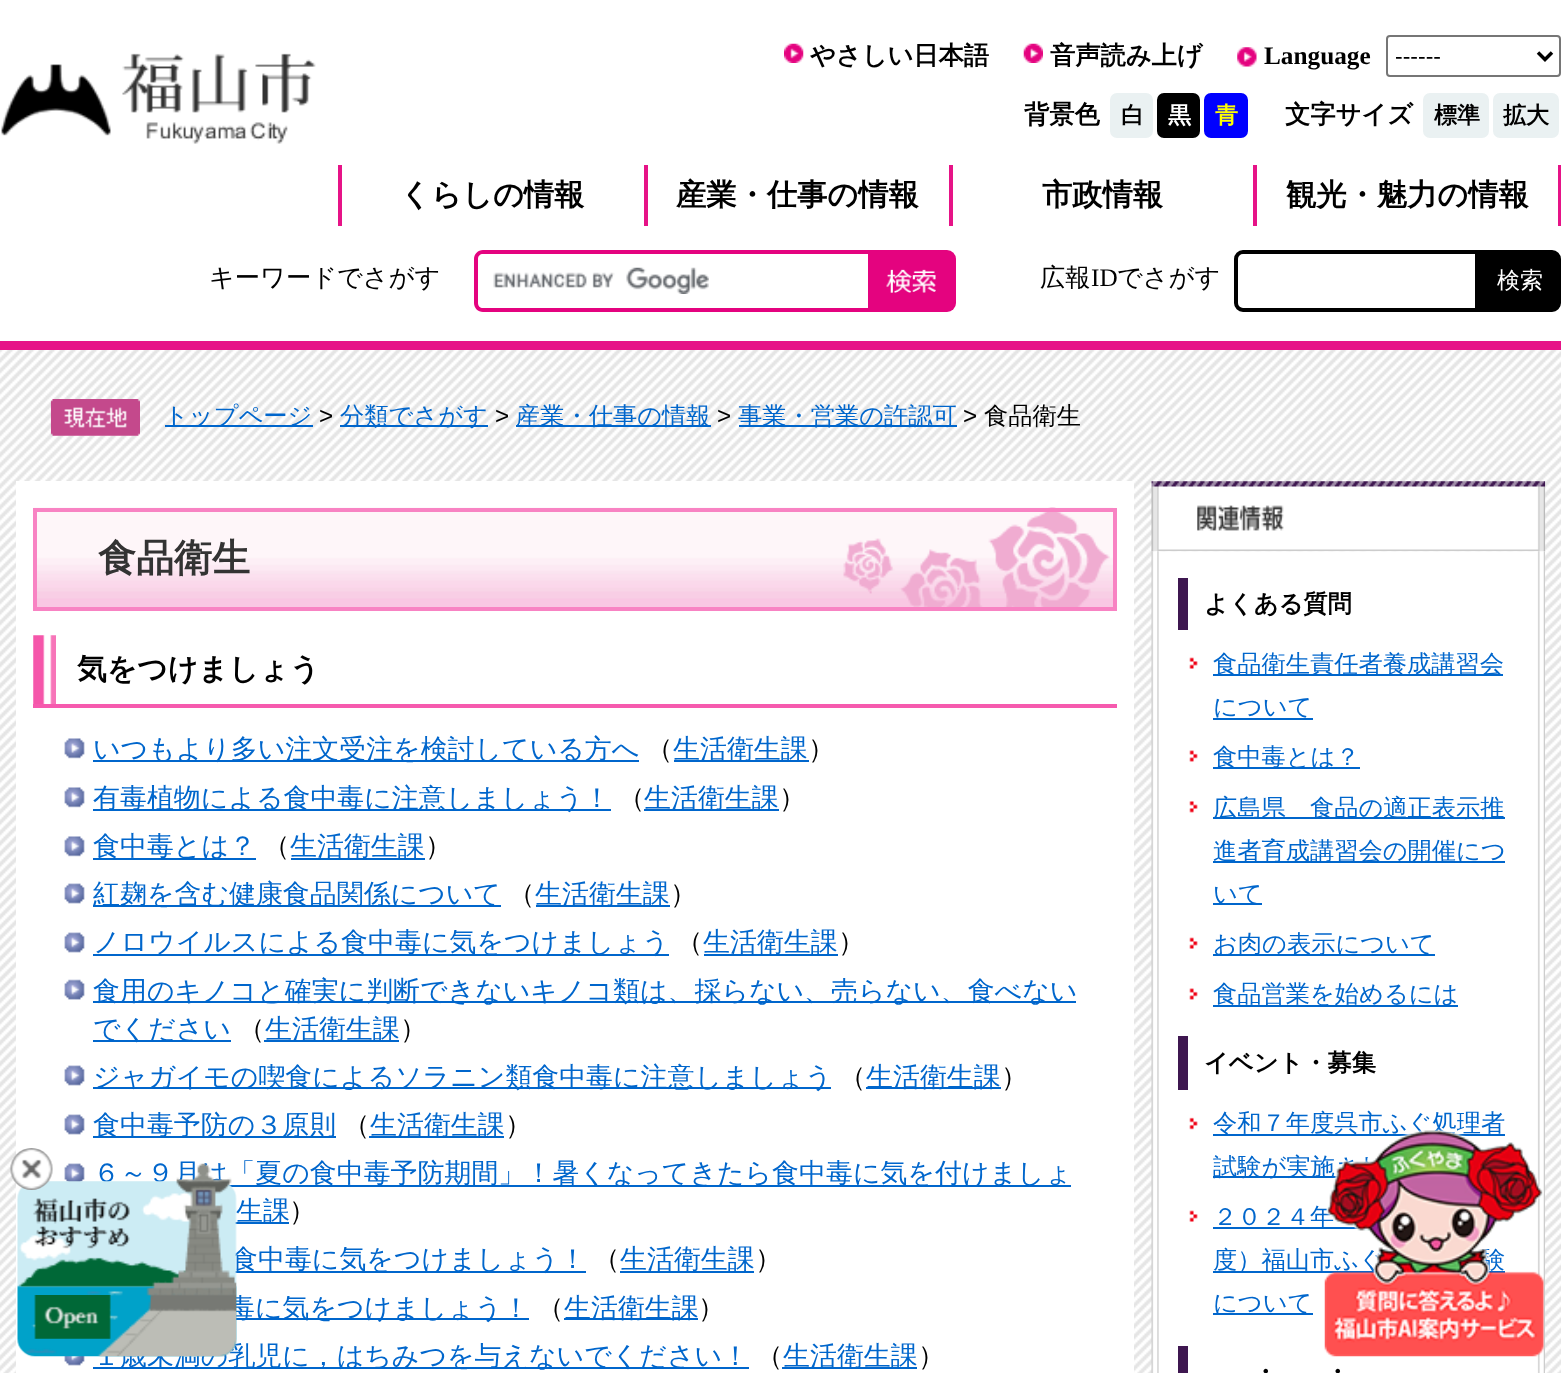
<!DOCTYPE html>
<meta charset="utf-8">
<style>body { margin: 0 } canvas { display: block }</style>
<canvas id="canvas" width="1561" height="1373"></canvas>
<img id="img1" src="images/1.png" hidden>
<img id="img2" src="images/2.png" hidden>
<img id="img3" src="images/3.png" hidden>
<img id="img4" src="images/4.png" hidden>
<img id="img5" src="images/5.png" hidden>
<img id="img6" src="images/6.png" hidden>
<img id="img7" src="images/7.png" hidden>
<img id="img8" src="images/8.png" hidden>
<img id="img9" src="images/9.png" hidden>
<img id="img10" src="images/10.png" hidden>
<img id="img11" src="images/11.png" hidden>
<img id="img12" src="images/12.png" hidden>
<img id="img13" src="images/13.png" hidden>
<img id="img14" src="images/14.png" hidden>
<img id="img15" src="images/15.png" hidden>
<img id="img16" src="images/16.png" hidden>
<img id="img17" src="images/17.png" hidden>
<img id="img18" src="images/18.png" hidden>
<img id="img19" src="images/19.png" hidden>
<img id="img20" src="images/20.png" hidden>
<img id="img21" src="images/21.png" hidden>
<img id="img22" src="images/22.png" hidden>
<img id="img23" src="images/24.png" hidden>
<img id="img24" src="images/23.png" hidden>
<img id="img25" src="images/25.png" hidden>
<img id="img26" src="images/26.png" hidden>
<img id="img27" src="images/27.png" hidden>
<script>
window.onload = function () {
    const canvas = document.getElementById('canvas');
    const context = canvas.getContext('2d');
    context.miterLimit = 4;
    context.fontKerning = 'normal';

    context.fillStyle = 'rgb(255, 255, 255)';
    context.fillRect(0, 0, 1561, 1373);
    context.drawImage(document.getElementById('img1'), 0, 350, 1561, 1023);
    context.fillStyle = 'rgb(230, 19, 135)';
    context.fillRect(0, 341, 1561, 9);
    context.drawImage(document.getElementById('img2'), 1, 53, 315, 91);
    context.drawImage(document.getElementById('img3'), 784, 43, 20, 20);
    context.drawImage(document.getElementById('img4'), 1023, 43, 20, 20);
    context.drawImage(document.getElementById('img5'), 1237, 47, 20, 20);
    context.beginPath();
    context.roundRect(1387, 36, 173, 40, 3);
    context.strokeStyle = 'rgb(118, 118, 118)';
    context.lineWidth = 2;
    context.stroke();
    context.beginPath();
    context.moveTo(1538, 52.5);
    context.lineTo(1545, 59.5);
    context.lineTo(1552, 52.5);
    context.strokeStyle = 'rgb(0, 0, 0)';
    context.lineWidth = 3.5;
    context.stroke();
    context.fillStyle = 'rgb(234, 241, 242)';
    context.beginPath();
    context.roundRect(1109, 92, 45, 47, 8);
    context.fill();
    context.strokeStyle = 'rgb(255, 255, 255)';
    context.lineWidth = 2;
    context.stroke();
    context.fillStyle = 'rgb(0, 0, 0)';
    context.beginPath();
    context.roundRect(1156, 92, 45, 47, 8);
    context.fill();
    context.stroke();
    context.fillStyle = 'rgb(0, 0, 255)';
    context.beginPath();
    context.roundRect(1203, 92, 46, 47, 8);
    context.fill();
    context.stroke();
    context.fillStyle = 'rgb(234, 241, 242)';
    context.beginPath();
    context.roundRect(1422, 92, 68, 47, 8);
    context.fill();
    context.stroke();
    context.beginPath();
    context.roundRect(1492, 92, 68, 47, 8);
    context.fill();
    context.stroke();
    context.fillStyle = 'rgb(230, 19, 135)';
    context.fillRect(644, 165, 4, 61);
    context.fillRect(338, 165, 4, 61);
    context.fillRect(949, 165, 4, 61);
    context.fillRect(1253, 165, 4, 61);
    context.fillRect(1558, 165, 3, 61);
    context.drawImage(document.getElementById('img6'), 493, 267, 216, 27);
    context.fillStyle = 'rgb(228, 3, 127)';
    context.beginPath();
    context.moveTo(483, 250);
    context.lineTo(868, 250);
    context.lineTo(868, 312);
    context.lineTo(483, 312);
    context.bezierCurveTo(478, 312, 474, 308, 474, 303);
    context.lineTo(474, 259);
    context.bezierCurveTo(474, 254, 478, 250, 483, 250);
    context.closePath();
    context.moveTo(483, 254);
    context.lineTo(868, 254);
    context.lineTo(868, 308);
    context.lineTo(483, 308);
    context.bezierCurveTo(480, 308, 478, 306, 478, 303);
    context.lineTo(478, 259);
    context.bezierCurveTo(478, 256, 480, 254, 483, 254);
    context.closePath();
    context.fill('evenodd');
    context.beginPath();
    context.roundRect(868, 250, 88, 62, [0, 9, 9, 0]);
    context.fill();
    context.drawImage(document.getElementById('img7'), 886, 269, 50, 24);
    context.beginPath();
    context.roundRect(1236, 252, 241, 58, [7, 0, 0, 7]);
    context.strokeStyle = 'rgb(0, 0, 0)';
    context.lineWidth = 4;
    context.stroke();
    context.fillStyle = 'rgb(0, 0, 0)';
    context.beginPath();
    context.roundRect(1481, 252, 78, 58, [0, 7, 7, 0]);
    context.fill();
    context.stroke();
    context.drawImage(document.getElementById('img8'), 50, 399, 90, 37);
    context.fillStyle = 'rgb(0, 102, 204)';
    context.fillRect(165, 425, 148, 2);
    context.fillRect(340, 425, 148, 2);
    context.fillRect(516, 425, 195, 2);
    context.fillRect(739, 425, 218, 2);
    context.fillStyle = 'rgb(255, 255, 255)';
    context.fillRect(16, 481, 1118, 892);
    context.drawImage(document.getElementById('img9'), 33, 507, 1080, 100);
    context.strokeStyle = 'rgb(248, 131, 195)';
    context.strokeRect(35, 510, 1080, 99);
    context.drawImage(document.getElementById('img10'), 33, 635, 23, 69);
    context.fillStyle = 'rgb(246, 90, 174)';
    context.fillRect(33, 704, 1084, 4);
    context.drawImage(document.getElementById('img11'), 64, 738, 21, 21);
    context.fillStyle = 'rgb(0, 102, 204)';
    context.fillRect(93, 760, 546, 2);
    context.fillRect(674, 760, 135, 2);
    context.drawImage(document.getElementById('img11'), 64, 787, 21, 21);
    context.fillRect(93, 809, 518, 2);
    context.fillRect(644, 809, 135, 2);
    context.drawImage(document.getElementById('img11'), 64, 836, 21, 21);
    context.fillRect(93, 858, 163, 2);
    context.fillRect(291, 858, 134, 2);
    context.drawImage(document.getElementById('img12'), 64, 883, 21, 21);
    context.fillRect(93, 905, 408, 2);
    context.fillRect(536, 905, 134, 2);
    context.drawImage(document.getElementById('img12'), 64, 932, 21, 21);
    context.fillRect(93, 954, 576, 2);
    context.fillRect(704, 954, 134, 2);
    context.drawImage(document.getElementById('img13'), 64, 979, 21, 21);
    context.fillRect(93, 1001, 983, 2);
    context.fillRect(93, 1040, 138, 2);
    context.fillRect(264, 1040, 135, 2);
    context.drawImage(document.getElementById('img12'), 64, 1065, 21, 21);
    context.fillRect(93, 1087, 738, 2);
    context.fillRect(866, 1087, 135, 2);
    context.drawImage(document.getElementById('img12'), 64, 1114, 21, 21);
    context.fillRect(93, 1136, 243, 2);
    context.fillRect(369, 1136, 135, 2);
    context.drawImage(document.getElementById('img14'), 64, 1163, 21, 19);
    context.fillRect(228, 1185, 843, 2);
    context.fillRect(235, 1222, 54, 2);
    context.fillRect(235, 1271, 351, 2);
    context.fillRect(620, 1271, 134, 2);
    context.fillRect(236, 1318, 293, 2);
    context.fillRect(564, 1318, 134, 2);
    context.drawImage(document.getElementById('img15'), 64, 1356, 21, 10);
    context.fillRect(93, 1367, 656, 2);
    context.fillRect(782, 1367, 135, 2);
    context.drawImage(document.getElementById('img16'), 1151, 481, 395, 71);
    context.drawImage(document.getElementById('img17'), 1151, 551, 394, 822);
    context.fillStyle = 'rgb(62, 23, 80)';
    context.fillRect(1178, 578, 10, 52);
    context.drawImage(document.getElementById('img18'), 1189, 657, 9, 12);
    context.fillStyle = 'rgb(0, 102, 204)';
    context.fillRect(1213, 674, 290, 2);
    context.fillRect(1213, 718, 100, 2);
    context.drawImage(document.getElementById('img19'), 1189, 750, 9, 12);
    context.fillRect(1213, 767, 147, 2);
    context.drawImage(document.getElementById('img20'), 1189, 801, 9, 12);
    context.fillRect(1213, 817, 292, 2);
    context.fillRect(1213, 861, 292, 2);
    context.fillRect(1213, 903, 49, 2);
    context.drawImage(document.getElementById('img18'), 1189, 937, 9, 12);
    context.fillRect(1213, 954, 222, 2);
    context.drawImage(document.getElementById('img19'), 1189, 988, 9, 12);
    context.fillRect(1213, 1005, 245, 2);
    context.fillStyle = 'rgb(62, 23, 80)';
    context.fillRect(1178, 1036, 10, 54);
    context.drawImage(document.getElementById('img21'), 1189, 1117, 9, 13);
    context.fillStyle = 'rgb(0, 102, 204)';
    context.fillRect(1213, 1134, 292, 2);
    context.fillRect(1213, 1176, 125, 2);
    context.drawImage(document.getElementById('img18'), 1189, 1210, 9, 12);
    context.fillRect(1213, 1227, 155, 2);
    context.fillRect(1213, 1271, 292, 2);
    context.fillRect(1213, 1313, 100, 2);
    context.fillStyle = 'rgb(62, 23, 80)';
    context.fillRect(1178, 1346, 10, 27);
    context.font = 'bold 25.25px WenQuanYi Zen Hei';
    context.fillStyle = 'rgb(0, 0, 0)';
    context.fillText('やさしい日本語', 810, 64);
    context.fillText('音声読み上げ', 1050, 64);
    context.font = 'bold 25.25px Liberation Serif';
    context.fillText('Language', 1264, 64);
    context.font = '23px Liberation Sans';
    context.fillText('------', 1395, 64);
    context.font = 'bold 25.25px WenQuanYi Zen Hei';
    context.fillText('背景色', 1024, 123);
    context.font = 'bold 23px WenQuanYi Zen Hei';
    context.fillText('白', 1121, 123);
    context.fillStyle = 'rgb(255, 255, 255)';
    context.fillText('黒', 1168, 123);
    context.fillStyle = 'rgb(255, 255, 0)';
    context.fillText('青', 1215, 123);
    context.font = 'bold 25.25px WenQuanYi Zen Hei';
    context.fillStyle = 'rgb(0, 0, 0)';
    context.fillText('文字サイズ', 1285, 123);
    context.font = 'bold 23px WenQuanYi Zen Hei';
    context.fillText('標準', 1434, 123);
    context.fillText('拡大', 1503, 123);
    context.font = 'bold 30.25px WenQuanYi Zen Hei';
    context.fillText('くらしの情報', 400, 205);
    context.fillText('産業・仕事の情報', 676, 205);
    context.fillText('市政情報', 1042, 205);
    context.fillText('観光・魅力の情報', 1286, 205);
    context.font = '500 25.25px WenQuanYi Zen Hei';
    context.fillText('キーワードでさがす', 209, 286);
    context.fillText('広報', 1040, 286);
    context.font = '25.25px Liberation Serif';
    context.fillText('ID', 1091, 286);
    context.font = '500 25.25px WenQuanYi Zen Hei';
    context.fillText('でさがす', 1117, 286);
    context.font = '500 23px WenQuanYi Zen Hei';
    context.fillStyle = 'rgb(255, 255, 255)';
    context.fillText('検索', 1497, 288);
    context.font = '500 24.25px WenQuanYi Zen Hei';
    context.fillStyle = 'rgb(0, 102, 204)';
    context.fillText('トップページ', 164, 424);
    context.font = '24.25px Liberation Sans';
    context.fillStyle = 'rgb(0, 0, 0)';
    context.fillText('>', 319, 424);
    context.font = '500 24.25px WenQuanYi Zen Hei';
    context.fillStyle = 'rgb(0, 102, 204)';
    context.fillText('分類でさがす', 340, 424);
    context.font = '24.25px Liberation Sans';
    context.fillStyle = 'rgb(0, 0, 0)';
    context.fillText('>', 495, 424);
    context.font = '500 24.25px WenQuanYi Zen Hei';
    context.fillStyle = 'rgb(0, 102, 204)';
    context.fillText('産業・仕事の情報', 516, 424);
    context.font = '24.25px Liberation Sans';
    context.fillStyle = 'rgb(0, 0, 0)';
    context.fillText('>', 717, 424);
    context.font = '500 24.25px WenQuanYi Zen Hei';
    context.fillStyle = 'rgb(0, 102, 204)';
    context.fillText('事業・営業の許認可', 738, 424);
    context.font = '24.25px Liberation Sans';
    context.fillStyle = 'rgb(0, 0, 0)';
    context.fillText('>', 963, 424);
    context.font = '500 24.25px WenQuanYi Zen Hei';
    context.fillText('食品衛生', 984, 424);
    context.font = 'bold 38px WenQuanYi Zen Hei';
    context.fillStyle = 'rgb(51, 51, 51)';
    context.fillText('食品衛生', 98, 571);
    context.font = 'bold 29.75px WenQuanYi Zen Hei';
    context.fillStyle = 'rgb(0, 0, 0)';
    context.fillText('気をつけましょう', 77, 679);
    context.font = '500 26.95px WenQuanYi Zen Hei';
    context.fillStyle = 'rgb(0, 102, 204)';
    context.fillText('いつもより多い注文受注を検討している方へ', 93, 758);
    context.fillStyle = 'rgb(0, 0, 0)';
    context.fillText('（', 646, 758);
    context.fillStyle = 'rgb(0, 102, 204)';
    context.fillText('生活衛生課', 673, 758);
    context.fillStyle = 'rgb(0, 0, 0)';
    context.fillText('）', 808, 758);
    context.fillStyle = 'rgb(0, 102, 204)';
    context.fillText('有毒植物による食中毒に注意しましょう！', 93, 807);
    context.fillStyle = 'rgb(0, 0, 0)';
    context.fillText('（', 618, 807);
    context.fillStyle = 'rgb(0, 102, 204)';
    context.fillText('生活衛生課', 644, 807);
    context.fillStyle = 'rgb(0, 0, 0)';
    context.fillText('）', 779, 807);
    context.fillStyle = 'rgb(0, 102, 204)';
    context.fillText('食中毒とは？', 93, 855);
    context.fillStyle = 'rgb(0, 0, 0)';
    context.fillText('（', 263, 855);
    context.fillStyle = 'rgb(0, 102, 204)';
    context.fillText('生活衛生課', 290, 855);
    context.fillStyle = 'rgb(0, 0, 0)';
    context.fillText('）', 425, 855);
    context.fillStyle = 'rgb(0, 102, 204)';
    context.fillText('紅麹を含む健康食品関係について', 93, 903);
    context.fillStyle = 'rgb(0, 0, 0)';
    context.fillText('（', 508, 903);
    context.fillStyle = 'rgb(0, 102, 204)';
    context.fillText('生活衛生課', 535, 903);
    context.fillStyle = 'rgb(0, 0, 0)';
    context.fillText('）', 670, 903);
    context.fillStyle = 'rgb(0, 102, 204)';
    context.fillText('ノロウイルスによる食中毒に気をつけましょう', 93, 951);
    context.fillStyle = 'rgb(0, 0, 0)';
    context.fillText('（', 676, 951);
    context.fillStyle = 'rgb(0, 102, 204)';
    context.fillText('生活衛生課', 703, 951);
    context.fillStyle = 'rgb(0, 0, 0)';
    context.fillText('）', 838, 951);
    context.fillStyle = 'rgb(0, 102, 204)';
    context.fillText('食用のキノコと確実に判断できないキノコ類は、採らない、売らない、食べない', 93, 1000);
    context.fillText('でください', 93, 1038);
    context.fillStyle = 'rgb(0, 0, 0)';
    context.fillText('（', 238, 1038);
    context.fillStyle = 'rgb(0, 102, 204)';
    context.fillText('生活衛生課', 265, 1038);
    context.fillStyle = 'rgb(0, 0, 0)';
    context.fillText('）', 400, 1038);
    context.fillStyle = 'rgb(0, 102, 204)';
    context.fillText('ジャガイモの喫食によるソラニン類食中毒に注意しましょう', 93, 1086);
    context.fillStyle = 'rgb(0, 0, 0)';
    context.fillText('（', 839, 1086);
    context.fillStyle = 'rgb(0, 102, 204)';
    context.fillText('生活衛生課', 866, 1086);
    context.fillStyle = 'rgb(0, 0, 0)';
    context.fillText('）', 1001, 1086);
    context.fillStyle = 'rgb(0, 102, 204)';
    context.fillText('食中毒予防の３原則', 93, 1134);
    context.fillStyle = 'rgb(0, 0, 0)';
    context.fillText('（', 343, 1134);
    context.fillStyle = 'rgb(0, 102, 204)';
    context.fillText('生活衛生課', 370, 1134);
    context.fillStyle = 'rgb(0, 0, 0)';
    context.fillText('）', 505, 1134);
    context.fillStyle = 'rgb(0, 102, 204)';
    context.fillText('６～９月は「夏の食中毒予防期間」！暑くなってきたら食中毒に気を付けましょ', 93, 1182);
    context.fillText('生課', 236, 1220);
    context.fillStyle = 'rgb(0, 0, 0)';
    context.fillText('）', 289, 1220);
    context.fillStyle = 'rgb(0, 102, 204)';
    context.fillText('食中毒に気をつけましょう！', 231, 1268);
    context.fillStyle = 'rgb(0, 0, 0)';
    context.fillText('（', 593, 1268);
    context.fillStyle = 'rgb(0, 102, 204)';
    context.fillText('生活衛生課', 620, 1268);
    context.fillStyle = 'rgb(0, 0, 0)';
    context.fillText('）', 755, 1268);
    context.fillStyle = 'rgb(0, 102, 204)';
    context.fillText('毒に気をつけましょう！', 228, 1317);
    context.fillStyle = 'rgb(0, 0, 0)';
    context.fillText('（', 537, 1317);
    context.fillStyle = 'rgb(0, 102, 204)';
    context.fillText('生活衛生課', 564, 1317);
    context.fillStyle = 'rgb(0, 0, 0)';
    context.fillText('）', 698, 1317);
    context.fillStyle = 'rgb(0, 102, 204)';
    context.fillText('１歳未満の乳児に，はちみつを与えないでください！', 93, 1365);
    context.fillStyle = 'rgb(0, 0, 0)';
    context.fillText('（', 756, 1365);
    context.fillStyle = 'rgb(0, 102, 204)';
    context.fillText('生活衛生課', 783, 1365);
    context.fillStyle = 'rgb(0, 0, 0)';
    context.fillText('）', 918, 1365);
    context.font = 'bold 24.25px WenQuanYi Zen Hei';
    context.fillText('よくある質問', 1204, 612);
    context.font = '500 24.25px WenQuanYi Zen Hei';
    context.fillStyle = 'rgb(0, 102, 204)';
    context.fillText('食品衛生責任者養成講習会', 1213, 672);
    context.fillText('について', 1213, 715);
    context.fillText('食中毒とは？', 1213, 765);
    context.fillText('広島県　食品の適正表示推', 1213, 816);
    context.fillText('進者育成講習会の開催につ', 1213, 859);
    context.fillText('いて', 1213, 902);
    context.fillText('お肉の表示について', 1213, 952);
    context.fillText('食品営業を始めるには', 1213, 1002);
    context.font = 'bold 24.25px WenQuanYi Zen Hei';
    context.fillStyle = 'rgb(0, 0, 0)';
    context.fillText('イベント・募集', 1204, 1071);
    context.font = '500 24.25px WenQuanYi Zen Hei';
    context.fillStyle = 'rgb(0, 102, 204)';
    context.fillText('令和７年度呉市ふぐ処理者', 1213, 1131);
    context.fillText('試験が実施され', 1213, 1175);
    context.fillText('２０２４年', 1213, 1225);
    context.fillText('度）福山市ふぐ', 1213, 1268);
    context.fillText('験', 1481, 1268);
    context.fillText('について', 1213, 1311);
    context.font = 'bold 24.25px WenQuanYi Zen Hei';
    context.fillStyle = 'rgb(0, 0, 0)';
    context.fillText('・', 1253, 1380);
    context.fillText('・', 1325, 1380);
    context.drawImage(document.getElementById('img22'), 17, 1181, 220, 176);
    context.drawImage(document.getElementById('img23'), 19, 1163, 218, 194);
    context.drawImage(document.getElementById('img24'), 10, 1148, 43, 42);
    context.drawImage(document.getElementById('img25'), 19, 1198, 111, 156);
    context.drawImage(document.getElementById('img26'), 34, 1295, 77, 44);
    context.drawImage(document.getElementById('img27'), 1324, 1128, 220, 229);
};
</script>
